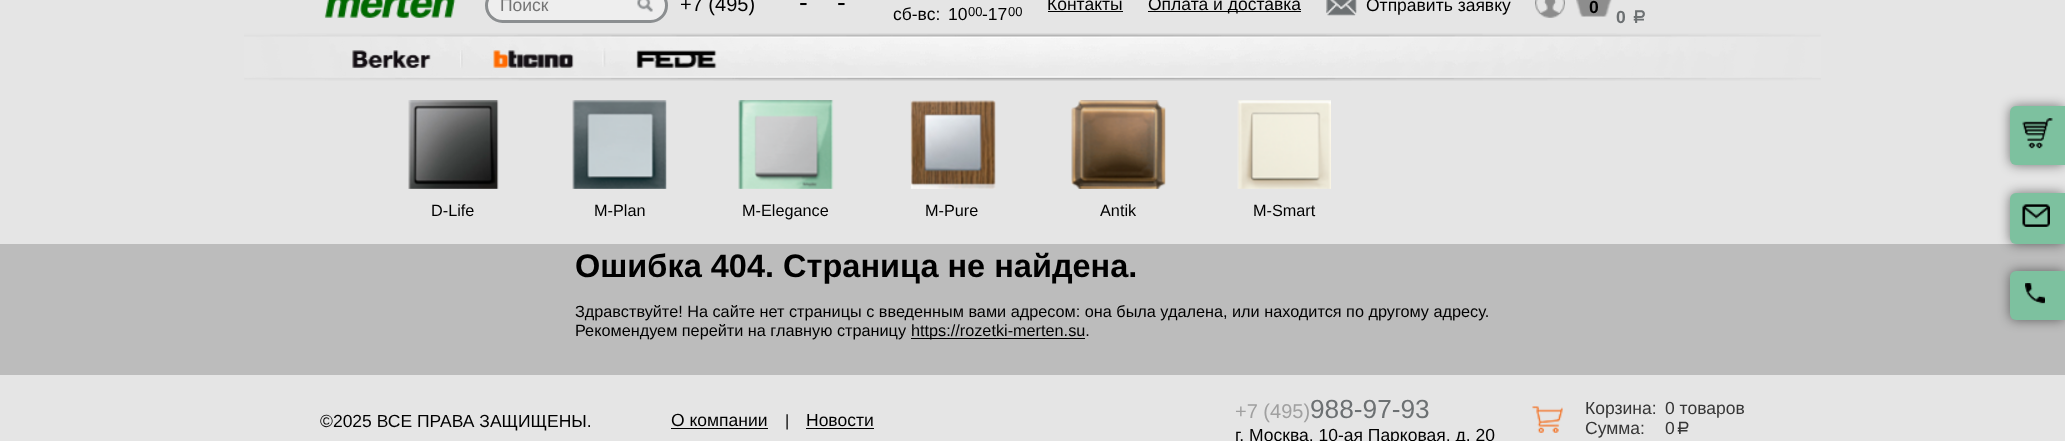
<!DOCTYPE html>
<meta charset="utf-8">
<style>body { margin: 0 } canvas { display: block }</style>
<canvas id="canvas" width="2065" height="441"></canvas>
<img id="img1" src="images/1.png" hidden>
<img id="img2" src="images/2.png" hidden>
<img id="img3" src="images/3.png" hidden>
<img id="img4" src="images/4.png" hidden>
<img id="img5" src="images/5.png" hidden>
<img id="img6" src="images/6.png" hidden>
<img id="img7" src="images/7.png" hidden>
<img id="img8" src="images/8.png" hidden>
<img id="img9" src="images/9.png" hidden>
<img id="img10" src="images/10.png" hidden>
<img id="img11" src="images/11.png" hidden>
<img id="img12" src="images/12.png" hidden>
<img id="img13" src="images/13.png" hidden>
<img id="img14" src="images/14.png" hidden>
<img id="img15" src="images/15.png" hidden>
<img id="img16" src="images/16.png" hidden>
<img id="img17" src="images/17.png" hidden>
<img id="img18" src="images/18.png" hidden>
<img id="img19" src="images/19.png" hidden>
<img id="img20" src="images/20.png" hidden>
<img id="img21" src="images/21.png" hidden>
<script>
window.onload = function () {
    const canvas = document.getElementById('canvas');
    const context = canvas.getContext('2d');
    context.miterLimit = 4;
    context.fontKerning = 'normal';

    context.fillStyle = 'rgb(188, 188, 188)';
    context.fillRect(0, 0, 2065, 441);
    context.fillStyle = 'rgb(229, 229, 229)';
    context.fillRect(0, 0, 2065, 244);
    context.drawImage(document.getElementById('img1'), 324, 0, 132, 18);
    context.fillStyle = 'rgb(238, 238, 238)';
    context.beginPath();
    context.roundRect(486.5, -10.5, 180, 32, 16);
    context.fill();
    context.strokeStyle = 'rgb(139, 142, 144)';
    context.lineWidth = 3;
    context.stroke();
    context.drawImage(document.getElementById('img2'), 637, 0, 16, 12);
    context.fillStyle = 'rgb(0, 0, 0)';
    context.fillRect(1048, 11, 75, 1);
    context.fillRect(1148, 11, 153, 1);
    context.drawImage(document.getElementById('img3'), 1326, 0, 31, 16);
    context.drawImage(document.getElementById('img4'), 1535, 0, 30, 18);
    context.drawImage(document.getElementById('img5'), 1576, 0, 36, 17);
    context.drawImage(document.getElementById('img6'), 244, 33, 1577, 48);
    context.drawImage(document.getElementById('img7'), 352, 50, 79, 18);
    context.drawImage(document.getElementById('img8'), 460, 50, 3, 18);
    context.drawImage(document.getElementById('img9'), 493, 50, 81, 18);
    context.drawImage(document.getElementById('img10'), 602, 48, 4, 19);
    context.drawImage(document.getElementById('img11'), 636, 50, 81, 18);
    context.drawImage(document.getElementById('img12'), 408, 100, 91, 89);
    context.drawImage(document.getElementById('img13'), 572, 100, 95, 89);
    context.drawImage(document.getElementById('img14'), 738, 100, 96, 89);
    context.drawImage(document.getElementById('img15'), 910, 100, 86, 89);
    context.drawImage(document.getElementById('img16'), 1071, 100, 95, 89);
    context.drawImage(document.getElementById('img17'), 1237, 100, 94, 89);
    context.fillStyle = 'rgba(0, 0, 0, 0.5)';
    context.filter = 'blur(6px)';
    context.beginPath();
    context.roundRect(2010, 106, 55, 59, 6);
    context.fill();
    context.filter = 'none';
    context.fillStyle = 'rgb(125, 193, 159)';
    context.beginPath();
    context.roundRect(2010, 106, 55, 59, [6, 0, 0, 6]);
    context.fill();
    context.drawImage(document.getElementById('img18'), 2022, 118, 31, 31);
    context.fillStyle = 'rgba(0, 0, 0, 0.5)';
    context.filter = 'blur(6px)';
    context.beginPath();
    context.roundRect(2010, 193, 55, 51, 6);
    context.fill();
    context.filter = 'none';
    context.fillStyle = 'rgb(125, 193, 159)';
    context.beginPath();
    context.roundRect(2010, 193, 55, 51, [6, 0, 0, 6]);
    context.fill();
    context.drawImage(document.getElementById('img19'), 2022, 204, 28, 23);
    context.fillStyle = 'rgba(0, 0, 0, 0.5)';
    context.filter = 'blur(6px)';
    context.beginPath();
    context.roundRect(2010, 271, 55, 49, 6);
    context.fill();
    context.filter = 'none';
    context.fillStyle = 'rgb(125, 193, 159)';
    context.beginPath();
    context.roundRect(2010, 271, 55, 49, [6, 0, 0, 6]);
    context.fill();
    context.drawImage(document.getElementById('img20'), 2025, 283, 20, 21);
    context.fillStyle = 'rgb(0, 0, 0)';
    context.fillRect(911, 338, 174, 1);
    context.fillStyle = 'rgb(229, 229, 229)';
    context.fillRect(0, 375, 2065, 66);
    context.fillStyle = 'rgb(0, 0, 0)';
    context.fillRect(671, 428, 97, 1);
    context.fillRect(806, 428, 68, 1);
    context.drawImage(document.getElementById('img21'), 1532, 406, 31, 27);
    context.font = '17.5px Liberation Sans';
    context.fillStyle = 'rgb(117, 117, 117)';
    context.fillText('Поиск', 500, 11);
    context.font = '20px Liberation Sans';
    context.fillStyle = 'rgb(0, 0, 0)';
    context.fillText('+7 (495)', 680, 11);
    context.font = '26.25px Liberation Sans';
    context.fillText('-', 799, 11);
    context.fillText('-', 837, 11);
    context.font = '17.5px Liberation Sans';
    context.fillText('сб-вс:', 893, 20);
    context.fillText('10', 948, 20);
    context.font = '13px Liberation Sans';
    context.fillText('00', 968, 16);
    context.font = '17.5px Liberation Sans';
    context.fillText('-17', 982, 20);
    context.font = '13px Liberation Sans';
    context.fillText('00', 1008, 16);
    context.font = '17.5px Liberation Sans';
    context.fillText('Контакты', 1047, 10);
    context.fillText('Оплата и доставка', 1148, 10);
    context.fillText('Отправить заявку', 1366, 11);
    context.font = 'bold 17.5px Liberation Sans';
    context.fillText('0', 1589, 13);
    context.fillStyle = 'rgb(108, 112, 114)';
    context.fillText('0', 1616, 23);
    context.font = 'bold 17.5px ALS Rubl';
    context.fillText('a', 1631, 23);
    context.font = '16.25px Liberation Sans';
    context.fillStyle = 'rgb(0, 0, 0)';
    context.fillText('D-Life', 431, 216);
    context.fillText('M-Plan', 594, 216);
    context.fillText('M-Elegance', 742, 216);
    context.fillText('M-Pure', 925, 216);
    context.fillText('Antik', 1100, 216);
    context.fillText('M-Smart', 1253, 216);
    context.font = 'bold 32.5px Liberation Sans';
    context.fillText('Ошибка 404. Страница не найдена.', 575, 277);
    context.font = '16.25px Liberation Sans';
    context.fillText('Здравствуйте! На сайте нет страницы с введенным вами адресом: она была удалена, или находится по другому адресу.', 575, 317);
    context.fillText('Рекомендуем перейти на главную страницу', 575, 336);
    context.fillText('https://rozetki-merten.su.', 911, 336);
    context.font = '17.5px Liberation Sans';
    context.fillText('©2025 ВСЕ ПРАВА ЗАЩИЩЕНЫ.', 320, 427);
    context.fillText('О компании', 671, 426);
    context.font = '16.25px Liberation Sans';
    context.fillText('|', 785, 426);
    context.font = '17.5px Liberation Sans';
    context.fillText('Новости', 806, 426);
    context.font = '20px Liberation Sans';
    context.fillStyle = 'rgb(160, 160, 160)';
    context.fillText('+7 (495)', 1235, 418);
    context.font = '26.25px Liberation Sans';
    context.fillStyle = 'rgb(108, 112, 114)';
    context.fillText('988-97-93', 1310, 418);
    context.font = '17.5px Liberation Sans';
    context.fillStyle = 'rgb(0, 0, 0)';
    context.fillText('г. Москва, 10-ая Парковая, д. 20', 1235, 441);
    context.fillStyle = 'rgb(54, 54, 54)';
    context.fillText('Корзина:', 1585, 414);
    context.fillText('0 товаров', 1665, 414);
    context.fillText('Сумма:', 1585, 434);
    context.fillText('0', 1665, 434);
    context.font = '17.5px ALS Rubl';
    context.fillText('a', 1675, 434);
};
</script>
